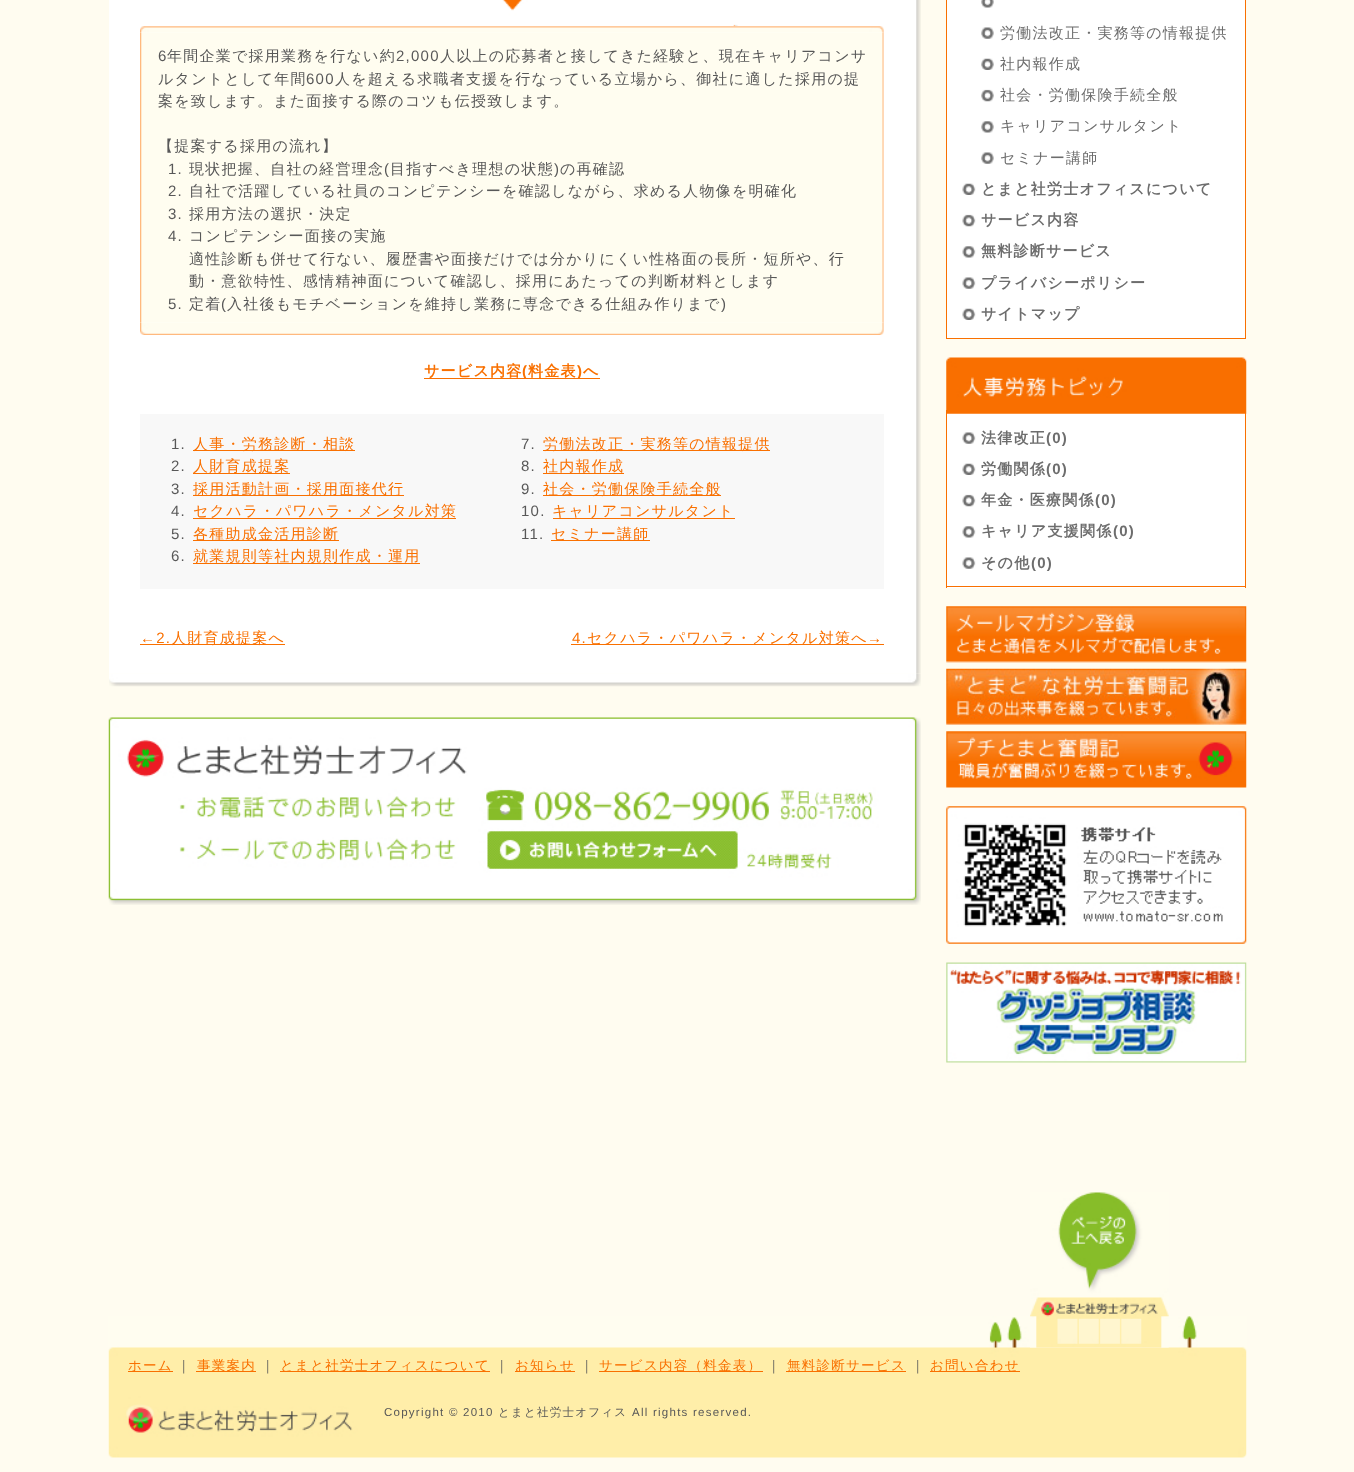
<!DOCTYPE html>
<meta charset="utf-8">
<style>body { margin: 0 } canvas { display: block }</style>
<canvas id="canvas" width="1354" height="1472"></canvas>
<img id="img1" src="images/6.png" hidden>
<img id="img2" src="images/1.png" hidden>
<img id="img3" src="images/2.png" hidden>
<img id="img4" src="images/3.png" hidden>
<img id="img5" src="images/4.png" hidden>
<img id="img6" src="images/5.png" hidden>
<img id="img7" src="images/7.png" hidden>
<img id="img8" src="images/8.png" hidden>
<img id="img9" src="images/9.png" hidden>
<img id="img10" src="images/10.png" hidden>
<img id="img11" src="images/11.png" hidden>
<img id="img12" src="images/12.png" hidden>
<img id="img13" src="images/13.png" hidden>
<img id="img14" src="images/14.png" hidden>
<img id="img15" src="images/15.png" hidden>
<img id="img16" src="images/16.png" hidden>
<img id="img17" src="images/17.png" hidden>
<img id="img18" src="images/18.png" hidden>
<img id="img19" src="images/19.png" hidden>
<img id="img20" src="images/20.png" hidden>
<img id="img21" src="images/21.png" hidden>
<img id="img22" src="images/22.png" hidden>
<img id="img23" src="images/23.png" hidden>
<img id="img24" src="images/24.png" hidden>
<script>
window.onload = function () {
    const canvas = document.getElementById('canvas');
    const context = canvas.getContext('2d');
    context.miterLimit = 4;
    context.fontKerning = 'normal';

    context.fillStyle = 'rgb(255, 252, 240)';
    context.fillRect(0, 0, 1354, 1472);
    context.drawImage(document.getElementById('img1'), 109, 673, 812, 14);
    context.drawImage(document.getElementById('img2'), 109, 0, 812, 674);
    context.drawImage(document.getElementById('img3'), 502, 0, 236, 27);
    context.drawImage(document.getElementById('img4'), 140, 26, 744, 7);
    context.drawImage(document.getElementById('img5'), 140, 32, 744, 291);
    context.drawImage(document.getElementById('img6'), 140, 322, 744, 13);
    context.fillStyle = 'rgb(249, 112, 0)';
    context.fillRect(424, 378, 176, 1);
    context.fillStyle = 'rgb(248, 248, 248)';
    context.fillRect(140, 414, 744, 175);
    context.fillStyle = 'rgb(249, 112, 0)';
    context.fillRect(193, 450, 162, 1);
    context.fillRect(193, 473, 97, 1);
    context.fillRect(193, 495, 211, 1);
    context.fillRect(193, 518, 263, 1);
    context.fillRect(193, 540, 146, 1);
    context.fillRect(193, 563, 227, 1);
    context.fillRect(543, 450, 227, 1);
    context.fillRect(543, 473, 81, 1);
    context.fillRect(543, 495, 178, 1);
    context.fillRect(553, 518, 182, 1);
    context.fillRect(551, 540, 99, 1);
    context.fillRect(140, 644, 145, 1);
    context.fillRect(571, 644, 313, 1);
    context.drawImage(document.getElementById('img7'), 108, 717, 813, 188);
    context.fillStyle = 'rgb(255, 255, 255)';
    context.fillRect(947, 0, 298, 338);
    context.fillStyle = 'rgb(249, 112, 0)';
    context.fillRect(1245, 0, 1, 339);
    context.fillRect(946, 338, 300, 1);
    context.fillRect(946, 0, 1, 339);
    context.drawImage(document.getElementById('img8'), 981, 0, 13, 8);
    context.drawImage(document.getElementById('img9'), 981, 27, 13, 12);
    context.drawImage(document.getElementById('img10'), 981, 58, 13, 12);
    context.drawImage(document.getElementById('img11'), 981, 89, 13, 13);
    context.drawImage(document.getElementById('img12'), 981, 121, 13, 12);
    context.drawImage(document.getElementById('img9'), 981, 152, 13, 12);
    context.drawImage(document.getElementById('img13'), 962, 183, 14, 12);
    context.drawImage(document.getElementById('img14'), 962, 214, 14, 13);
    context.drawImage(document.getElementById('img15'), 962, 246, 14, 12);
    context.drawImage(document.getElementById('img16'), 962, 277, 14, 12);
    context.drawImage(document.getElementById('img13'), 962, 308, 14, 12);
    context.fillStyle = 'rgb(255, 255, 255)';
    context.fillRect(947, 413, 298, 175);
    context.fillStyle = 'rgb(249, 112, 0)';
    context.fillRect(1245, 410, 1, 178);
    context.fillRect(946, 586, 300, 1);
    context.fillRect(946, 410, 1, 178);
    context.drawImage(document.getElementById('img17'), 946, 357, 301, 57);
    context.drawImage(document.getElementById('img16'), 962, 432, 14, 12);
    context.drawImage(document.getElementById('img13'), 962, 463, 14, 12);
    context.drawImage(document.getElementById('img14'), 962, 494, 14, 13);
    context.drawImage(document.getElementById('img15'), 962, 526, 14, 12);
    context.drawImage(document.getElementById('img16'), 962, 557, 14, 12);
    context.drawImage(document.getElementById('img18'), 946, 606, 301, 57);
    context.drawImage(document.getElementById('img19'), 946, 668, 301, 57);
    context.drawImage(document.getElementById('img20'), 946, 731, 301, 57);
    context.drawImage(document.getElementById('img21'), 946, 806, 301, 138);
    context.drawImage(document.getElementById('img22'), 946, 962, 301, 101);
    context.drawImage(document.getElementById('img23'), 108, 1316, 1139, 142);
    context.drawImage(document.getElementById('img24'), 1030, 1192, 139, 156);
    context.fillRect(128, 1371, 45, 1);
    context.fillRect(196, 1371, 60, 1);
    context.fillRect(280, 1371, 210, 1);
    context.fillRect(515, 1371, 60, 1);
    context.fillRect(599, 1371, 164, 1);
    context.fillRect(786, 1371, 120, 1);
    context.fillRect(930, 1371, 90, 1);
    context.letterSpacing = '1.25px';
    context.font = '15px Liberation Sans';
    context.fillStyle = 'rgb(88, 88, 88)';
    context.fillText('6', 158, 61);
    context.font = '500 15px WenQuanYi Zen Hei';
    context.fillText('年間企業で採用業務を行ない約', 167, 61);
    context.font = '15px Liberation Sans';
    context.fillText('2,000', 396, 61);
    context.font = '500 15px WenQuanYi Zen Hei';
    context.fillText('人以上の応募者と接してきた経験と、現在キャリアコンサ', 440, 61);
    context.fillText('ルタントとして年間', 158, 84);
    context.font = '15px Liberation Sans';
    context.fillText('600', 306, 84);
    context.font = '500 15px WenQuanYi Zen Hei';
    context.fillText('人を超える求職者支援を行なっている立場から、御社に適した採用の提', 335, 84);
    context.fillText('案を致します。また面接する際のコツも伝授致します。', 158, 106);
    context.fillText('【提案する採用の流れ】', 158, 151);
    context.font = '15px Liberation Sans';
    context.fillText('1.', 168, 174);
    context.font = '500 15px WenQuanYi Zen Hei';
    context.fillText('現状把握、自社の経営理念', 189, 174);
    context.font = '15px Liberation Sans';
    context.fillText('(', 384, 174);
    context.font = '500 15px WenQuanYi Zen Hei';
    context.fillText('目指すべき理想の状態', 390, 174);
    context.font = '15px Liberation Sans';
    context.fillText(')', 554, 174);
    context.font = '500 15px WenQuanYi Zen Hei';
    context.fillText('の再確認', 560, 174);
    context.font = '15px Liberation Sans';
    context.fillText('2.', 168, 196);
    context.font = '500 15px WenQuanYi Zen Hei';
    context.fillText('自社で活躍している社員のコンピテンシーを確認しながら、求める人物像を明確化', 189, 196);
    context.font = '15px Liberation Sans';
    context.fillText('3.', 168, 219);
    context.font = '500 15px WenQuanYi Zen Hei';
    context.fillText('採用方法の選択・決定', 189, 219);
    context.font = '15px Liberation Sans';
    context.fillText('4.', 168, 241);
    context.font = '500 15px WenQuanYi Zen Hei';
    context.fillText('コンピテンシー面接の実施', 189, 241);
    context.fillText('適性診断も併せて行ない、履歴書や面接だけでは分かりにくい性格面の長所・短所や、行', 189, 264);
    context.fillText('動・意欲特性、感情精神面について確認し、採用にあたっての判断材料とします', 189, 286);
    context.font = '15px Liberation Sans';
    context.fillText('5.', 168, 309);
    context.font = '500 15px WenQuanYi Zen Hei';
    context.fillText('定着', 189, 309);
    context.font = '15px Liberation Sans';
    context.fillText('(', 221, 309);
    context.font = '500 15px WenQuanYi Zen Hei';
    context.fillText('入社後もモチベーションを維持し業務に専念できる仕組み作りまで', 227, 309);
    context.font = '15px Liberation Sans';
    context.fillText(')', 721, 309);
    context.font = 'bold 15px WenQuanYi Zen Hei';
    context.fillStyle = 'rgb(249, 112, 0)';
    context.fillText('サービス内容', 424, 376);
    context.font = 'bold 15px Liberation Sans';
    context.fillText('(', 522, 376);
    context.font = 'bold 15px WenQuanYi Zen Hei';
    context.fillText('料金表', 528, 376);
    context.font = 'bold 15px Liberation Sans';
    context.fillText(')', 577, 376);
    context.font = 'bold 15px WenQuanYi Zen Hei';
    context.fillText('へ', 583, 376);
    context.font = '15px Liberation Sans';
    context.fillStyle = 'rgb(88, 88, 88)';
    context.fillText('1.', 171, 449);
    context.font = '500 15px WenQuanYi Zen Hei';
    context.fillStyle = 'rgb(249, 112, 0)';
    context.fillText('人事・労務診断・相談', 193, 449);
    context.font = '15px Liberation Sans';
    context.fillStyle = 'rgb(88, 88, 88)';
    context.fillText('2.', 171, 471);
    context.font = '500 15px WenQuanYi Zen Hei';
    context.fillStyle = 'rgb(249, 112, 0)';
    context.fillText('人財育成提案', 193, 471);
    context.font = '15px Liberation Sans';
    context.fillStyle = 'rgb(88, 88, 88)';
    context.fillText('3.', 171, 494);
    context.font = '500 15px WenQuanYi Zen Hei';
    context.fillStyle = 'rgb(249, 112, 0)';
    context.fillText('採用活動計画・採用面接代行', 193, 494);
    context.font = '15px Liberation Sans';
    context.fillStyle = 'rgb(88, 88, 88)';
    context.fillText('4.', 171, 516);
    context.font = '500 15px WenQuanYi Zen Hei';
    context.fillStyle = 'rgb(249, 112, 0)';
    context.fillText('セクハラ・パワハラ・メンタル対策', 193, 516);
    context.font = '15px Liberation Sans';
    context.fillStyle = 'rgb(88, 88, 88)';
    context.fillText('5.', 171, 539);
    context.font = '500 15px WenQuanYi Zen Hei';
    context.fillStyle = 'rgb(249, 112, 0)';
    context.fillText('各種助成金活用診断', 193, 539);
    context.font = '15px Liberation Sans';
    context.fillStyle = 'rgb(88, 88, 88)';
    context.fillText('6.', 171, 561);
    context.font = '500 15px WenQuanYi Zen Hei';
    context.fillStyle = 'rgb(249, 112, 0)';
    context.fillText('就業規則等社内規則作成・運用', 193, 561);
    context.font = '15px Liberation Sans';
    context.fillStyle = 'rgb(88, 88, 88)';
    context.fillText('7.', 521, 449);
    context.font = '500 15px WenQuanYi Zen Hei';
    context.fillStyle = 'rgb(249, 112, 0)';
    context.fillText('労働法改正・実務等の情報提供', 543, 449);
    context.font = '15px Liberation Sans';
    context.fillStyle = 'rgb(88, 88, 88)';
    context.fillText('8.', 521, 471);
    context.font = '500 15px WenQuanYi Zen Hei';
    context.fillStyle = 'rgb(249, 112, 0)';
    context.fillText('社内報作成', 543, 471);
    context.font = '15px Liberation Sans';
    context.fillStyle = 'rgb(88, 88, 88)';
    context.fillText('9.', 521, 494);
    context.font = '500 15px WenQuanYi Zen Hei';
    context.fillStyle = 'rgb(249, 112, 0)';
    context.fillText('社会・労働保険手続全般', 543, 494);
    context.font = '15px Liberation Sans';
    context.fillStyle = 'rgb(88, 88, 88)';
    context.fillText('10.', 521, 516);
    context.font = '500 15px WenQuanYi Zen Hei';
    context.fillStyle = 'rgb(249, 112, 0)';
    context.fillText('キャリアコンサルタント', 552, 516);
    context.font = '15px Liberation Sans';
    context.fillStyle = 'rgb(88, 88, 88)';
    context.fillText('11.', 521, 539);
    context.font = '500 15px WenQuanYi Zen Hei';
    context.fillStyle = 'rgb(249, 112, 0)';
    context.fillText('セミナー講師', 551, 539);
    context.font = '15px Liberation Sans';
    context.fillText('←2.', 140, 643);
    context.font = '500 15px WenQuanYi Zen Hei';
    context.fillText('人財育成提案へ', 171, 643);
    context.font = '15px Liberation Sans';
    context.fillText('4.', 572, 643);
    context.font = '500 15px WenQuanYi Zen Hei';
    context.fillText('セクハラ・パワハラ・メンタル対策へ', 587, 643);
    context.font = '15px Liberation Sans';
    context.fillText('→', 867, 643);
    context.font = '500 15px WenQuanYi Zen Hei';
    context.fillStyle = 'rgb(109, 109, 109)';
    context.fillText('労働法改正・実務等の情報提供', 1000, 38);
    context.fillText('社内報作成', 1000, 69);
    context.fillText('社会・労働保険手続全般', 1000, 100);
    context.fillText('キャリアコンサルタント', 1000, 131);
    context.fillText('セミナー講師', 1000, 163);
    context.font = 'bold 15px WenQuanYi Zen Hei';
    context.fillText('とまと社労士オフィスについて', 981, 194);
    context.fillText('サービス内容', 981, 225);
    context.fillText('無料診断サービス', 981, 256);
    context.fillText('プライバシーポリシー', 981, 288);
    context.fillText('サイトマップ', 981, 319);
    context.fillText('法律改正', 981, 443);
    context.font = 'bold 15px Liberation Sans';
    context.fillText('(0)', 1046, 443);
    context.font = 'bold 15px WenQuanYi Zen Hei';
    context.fillText('労働関係', 981, 474);
    context.font = 'bold 15px Liberation Sans';
    context.fillText('(0)', 1046, 474);
    context.font = 'bold 15px WenQuanYi Zen Hei';
    context.fillText('年金・医療関係', 981, 505);
    context.font = 'bold 15px Liberation Sans';
    context.fillText('(0)', 1095, 505);
    context.font = 'bold 15px WenQuanYi Zen Hei';
    context.fillText('キャリア支援関係', 981, 536);
    context.font = 'bold 15px Liberation Sans';
    context.fillText('(0)', 1113, 536);
    context.font = 'bold 15px WenQuanYi Zen Hei';
    context.fillText('その他', 981, 568);
    context.font = 'bold 15px Liberation Sans';
    context.fillText('(0)', 1031, 568);
    context.font = '500 13.5px WenQuanYi Zen Hei';
    context.fillStyle = 'rgb(249, 112, 0)';
    context.fillText('ホーム', 128, 1370);
    context.fillStyle = 'rgb(88, 88, 88)';
    context.fillText('｜', 177, 1370);
    context.fillStyle = 'rgb(249, 112, 0)';
    context.fillText('事業案内', 197, 1370);
    context.fillStyle = 'rgb(88, 88, 88)';
    context.fillText('｜', 261, 1370);
    context.fillStyle = 'rgb(249, 112, 0)';
    context.fillText('とまと社労士オフィスについて', 280, 1370);
    context.fillStyle = 'rgb(88, 88, 88)';
    context.fillText('｜', 495, 1370);
    context.fillStyle = 'rgb(249, 112, 0)';
    context.fillText('お知らせ', 515, 1370);
    context.fillStyle = 'rgb(88, 88, 88)';
    context.fillText('｜', 580, 1370);
    context.fillStyle = 'rgb(249, 112, 0)';
    context.fillText('サービス内容（料金表）', 599, 1370);
    context.fillStyle = 'rgb(88, 88, 88)';
    context.fillText('｜', 767, 1370);
    context.fillStyle = 'rgb(249, 112, 0)';
    context.fillText('無料診断サービス', 787, 1370);
    context.fillStyle = 'rgb(88, 88, 88)';
    context.fillText('｜', 911, 1370);
    context.fillStyle = 'rgb(249, 112, 0)';
    context.fillText('お問い合わせ', 930, 1370);
    context.font = '11.5px Liberation Sans';
    context.fillStyle = 'rgb(88, 88, 88)';
    context.fillText('Copyright © 2010', 384, 1416);
    context.font = '500 11.5px WenQuanYi Zen Hei';
    context.fillText('とまと社労士オフィス', 498, 1416);
    context.font = '11.5px Liberation Sans';
    context.fillText('All rights reserved.', 632, 1416);
};
</script>
